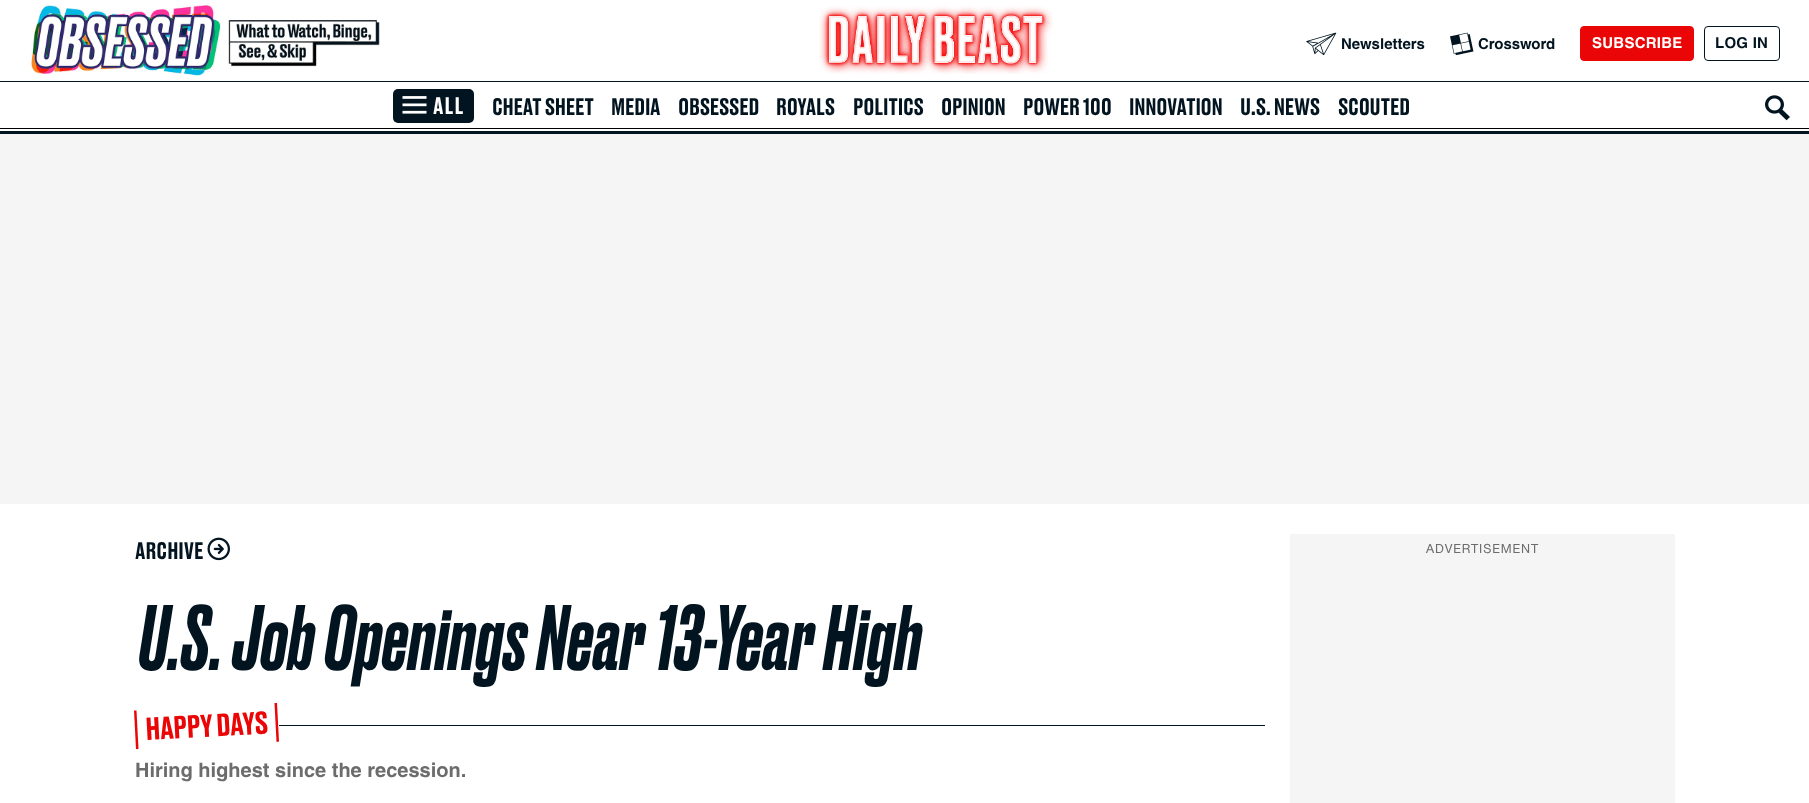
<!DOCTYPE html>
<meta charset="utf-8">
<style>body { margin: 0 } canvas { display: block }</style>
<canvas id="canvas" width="1809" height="803"></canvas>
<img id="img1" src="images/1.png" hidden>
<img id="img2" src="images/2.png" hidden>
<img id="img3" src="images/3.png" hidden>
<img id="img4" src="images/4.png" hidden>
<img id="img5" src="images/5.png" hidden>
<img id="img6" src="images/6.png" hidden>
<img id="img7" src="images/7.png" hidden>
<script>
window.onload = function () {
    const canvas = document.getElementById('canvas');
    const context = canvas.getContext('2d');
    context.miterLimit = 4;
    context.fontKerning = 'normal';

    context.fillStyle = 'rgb(255, 255, 255)';
    context.fillRect(0, 0, 1809, 803);
    context.fillStyle = 'rgb(2, 20, 31)';
    context.fillRect(0, 131, 1809, 3);
    context.drawImage(document.getElementById('img1'), 30, 5, 350, 71);
    context.drawImage(document.getElementById('img2'), 819, 6, 234, 68);
    context.drawImage(document.getElementById('img3'), 1306, 32, 31, 24);
    context.drawImage(document.getElementById('img4'), 1450, 32, 24, 24);
    context.fillStyle = 'rgb(234, 6, 6)';
    context.beginPath();
    context.roundRect(1580.5, 26.5, 113, 34, 3.5);
    context.fill();
    context.strokeStyle = 'rgb(234, 6, 6)';
    context.stroke();
    context.beginPath();
    context.roundRect(1704.5, 26.5, 75, 34, 3.5);
    context.strokeStyle = 'rgb(2, 20, 31)';
    context.stroke();
    context.fillStyle = 'rgb(2, 20, 31)';
    context.fillRect(0, 81, 1809, 1);
    context.beginPath();
    context.roundRect(393, 89, 81, 34, 5);
    context.fill();
    context.drawImage(document.getElementById('img5'), 402, 96, 25, 18);
    context.drawImage(document.getElementById('img6'), 1765, 95, 25, 26);
    context.fillStyle = 'rgb(0, 0, 0)';
    context.fillRect(0, 128, 1809, 1);
    context.fillStyle = 'rgb(245, 245, 245)';
    context.fillRect(0, 134, 1809, 370);
    context.drawImage(document.getElementById('img7'), 207, 537, 23, 24);
    context.fillStyle = 'rgb(234, 6, 6)';
    context.beginPath();
    context.moveTo(274.5, 703);
    context.lineTo(277, 703);
    context.lineTo(279, 741.5);
    context.lineTo(276.5, 742);
    context.closePath();
    context.fill();
    context.beginPath();
    context.moveTo(134, 710.5);
    context.lineTo(136.5, 710.5);
    context.lineTo(138.5, 749);
    context.lineTo(136, 749);
    context.closePath();
    context.fill();
    context.fillStyle = 'rgb(2, 20, 31)';
    context.fillRect(279, 725, 986, 1);
    context.fillStyle = 'rgb(245, 245, 245)';
    context.fillRect(1290, 534, 385, 269);
    context.font = 'bold 15px Helvetica';
    context.fillStyle = 'rgb(2, 20, 31)';
    context.fillText('Newsletters', 1341, 49);
    context.fillText('Crossword', 1478, 49);
    context.letterSpacing = '0.25px';
    context.fillStyle = 'rgb(255, 255, 255)';
    context.fillText('SUBSCRIBE', 1592, 48);
    context.fillStyle = 'rgb(2, 20, 31)';
    context.fillText('LOG IN', 1715, 48);
    context.letterSpacing = '1px';
    context.font = '500 22.5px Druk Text';
    context.fillStyle = 'rgb(255, 255, 255)';
    context.fillText('ALL', 433, 114);
    context.letterSpacing = '-0.25px';
    context.fillStyle = 'rgb(2, 20, 31)';
    context.fillText('CHEAT SHEET', 492, 115);
    context.fillText('MEDIA', 611, 115);
    context.fillText('OBSESSED', 678, 115);
    context.fillText('ROYALS', 776, 115);
    context.fillText('POLITICS', 853, 115);
    context.fillText('OPINION', 941, 115);
    context.fillText('POWER 100', 1023, 115);
    context.fillText('INNOVATION', 1129, 115);
    context.fillText('U.S. NEWS', 1240, 115);
    context.fillText('SCOUTED', 1338, 115);
    context.letterSpacing = '0px';
    context.fillText('ARCHIVE', 135, 559);
    context.letterSpacing = '0.6px';
    context.font = 'italic 500 87.5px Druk';
    context.fillText('U.S. Job Openings Near 13-Year High', 139, 670);
    context.letterSpacing = '-0.5px';
    context.font = '500 30px Druk Text';
    context.fillStyle = 'rgb(234, 6, 6)';
    context.save();
    context.translate(146, 740);
    context.rotate(-3 * Math.PI / 180);
    context.fillText('HAPPY DAYS', 0, 0);
    context.restore();
    context.letterSpacing = '0px';
    context.font = 'bold 20px Helvetica';
    context.fillStyle = 'rgb(108, 108, 108)';
    context.fillText('Hiring highest since the recession.', 135, 777);
    context.letterSpacing = '0.9px';
    context.font = '12.5px Helvetica Neue';
    context.fillText('ADVERTISEMENT', 1426, 553);
};
</script>
